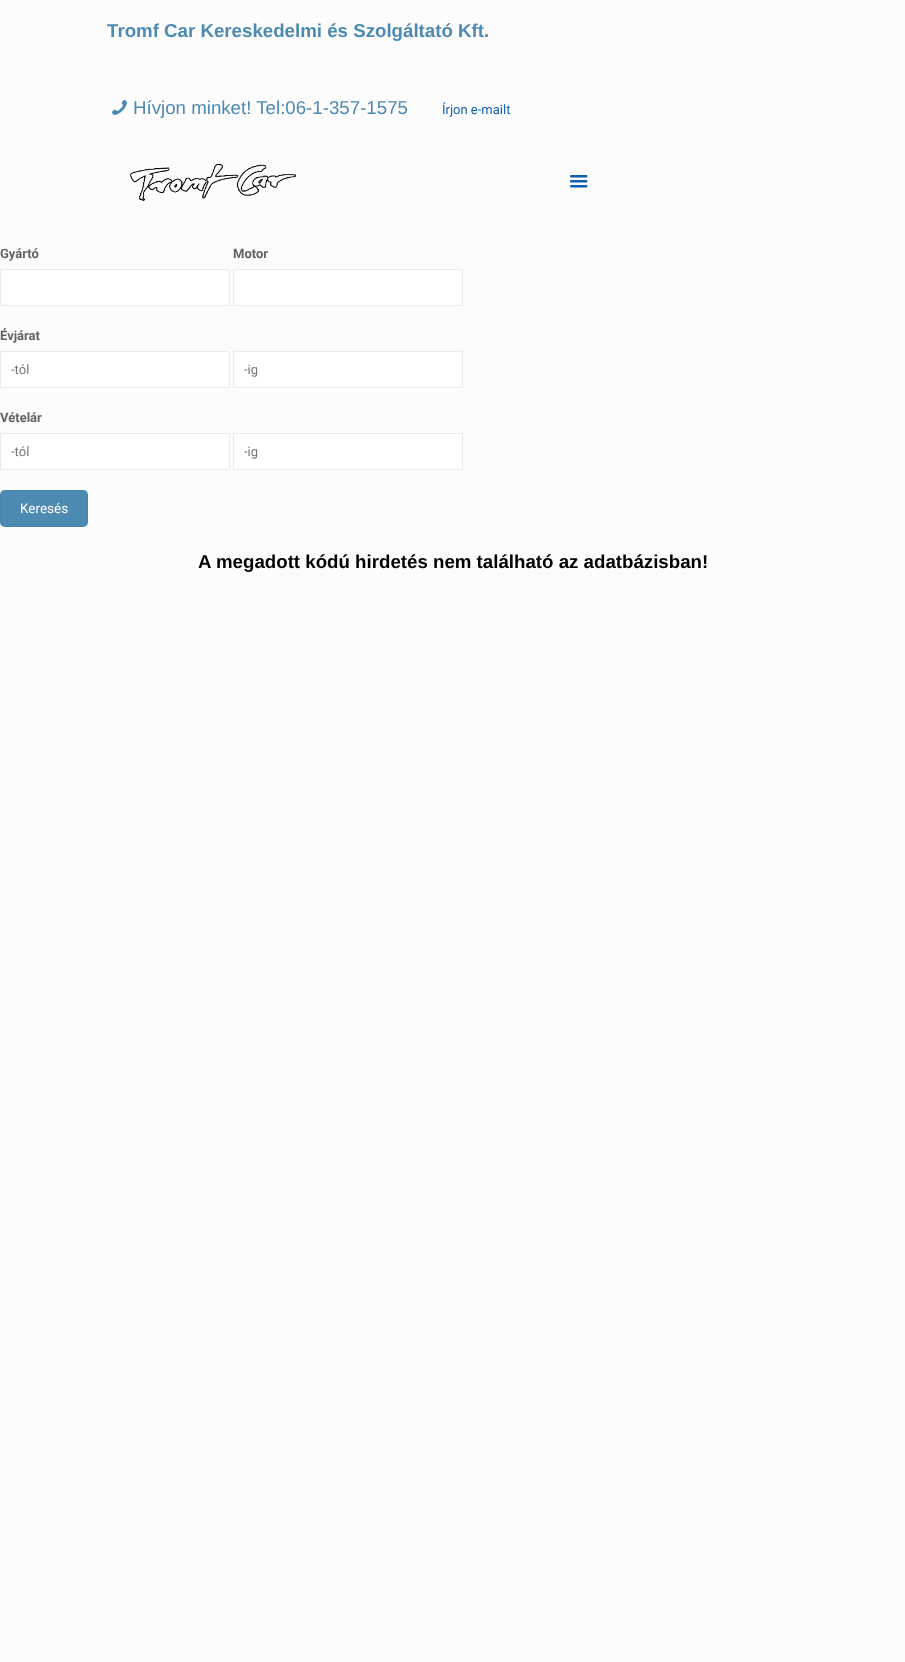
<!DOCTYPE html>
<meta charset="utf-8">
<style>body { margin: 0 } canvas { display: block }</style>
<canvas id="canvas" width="905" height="1662"></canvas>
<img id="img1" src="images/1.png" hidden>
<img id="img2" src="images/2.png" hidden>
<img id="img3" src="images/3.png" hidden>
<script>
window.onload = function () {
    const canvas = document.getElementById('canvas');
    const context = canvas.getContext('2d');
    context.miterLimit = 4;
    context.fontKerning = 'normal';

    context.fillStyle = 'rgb(252, 252, 252)';
    context.fillRect(0, 0, 905, 1662);
    context.drawImage(document.getElementById('img1'), 112, 100, 15, 15);
    context.drawImage(document.getElementById('img2'), 130, 163, 166, 38);
    context.drawImage(document.getElementById('img3'), 570, 175, 18, 13);
    context.fillStyle = 'rgb(255, 255, 255)';
    context.beginPath();
    context.rect(0.5, 269.5, 229, 36);
    context.fill();
    context.strokeStyle = 'rgb(235, 235, 235)';
    context.stroke();
    context.beginPath();
    context.rect(233.5, 269.5, 229, 36);
    context.fill();
    context.stroke();
    context.beginPath();
    context.rect(0.5, 351.5, 229, 36);
    context.fill();
    context.stroke();
    context.beginPath();
    context.rect(233.5, 351.5, 229, 36);
    context.fill();
    context.stroke();
    context.beginPath();
    context.rect(0.5, 433.5, 229, 36);
    context.fill();
    context.stroke();
    context.beginPath();
    context.rect(233.5, 433.5, 229, 36);
    context.fill();
    context.stroke();
    context.fillStyle = 'rgb(76, 138, 177)';
    context.beginPath();
    context.roundRect(0, 490, 88, 37, 5);
    context.fill();
    context.strokeStyle = 'rgba(0, 0, 0, 0.03)';
    context.strokeRect(0.5, 490.5, 87, 36);
    context.font = 'bold 18.7px Liberation Sans';
    context.fillText('Tromf Car Kereskedelmi és Szolgáltató Kft.', 107, 37);
    context.font = '18.7px Liberation Sans';
    context.fillText('Hívjon minket! Tel:06-1-357-1575', 133, 114);
    context.font = '13px Roboto';
    context.fillStyle = 'rgb(16, 95, 174)';
    context.fillText('Írjon e-mailt', 442, 114);
    context.font = 'bold 13px Roboto';
    context.fillStyle = 'rgb(98, 98, 98)';
    context.fillText('Gyártó', 0, 258);
    context.fillText('Motor', 233, 258);
    context.fillText('Évjárat', 0, 340);
    context.font = '13px Roboto';
    context.fillStyle = 'rgb(117, 117, 117)';
    context.fillText('-tól', 11, 374);
    context.fillText('-ig', 244, 374);
    context.font = 'bold 13px Roboto';
    context.fillStyle = 'rgb(98, 98, 98)';
    context.fillText('Vételár', 0, 422);
    context.font = '13px Roboto';
    context.fillStyle = 'rgb(117, 117, 117)';
    context.fillText('-tól', 11, 456);
    context.fillText('-ig', 244, 456);
    context.font = '13.5px Roboto';
    context.fillStyle = 'rgb(255, 255, 255)';
    context.fillText('Keresés', 20, 513);
    context.font = 'bold 18.7px Liberation Sans';
    context.fillStyle = 'rgb(0, 0, 0)';
    context.fillText('A megadott kódú hirdetés nem található az adatbázisban!', 198, 568);
};
</script>
